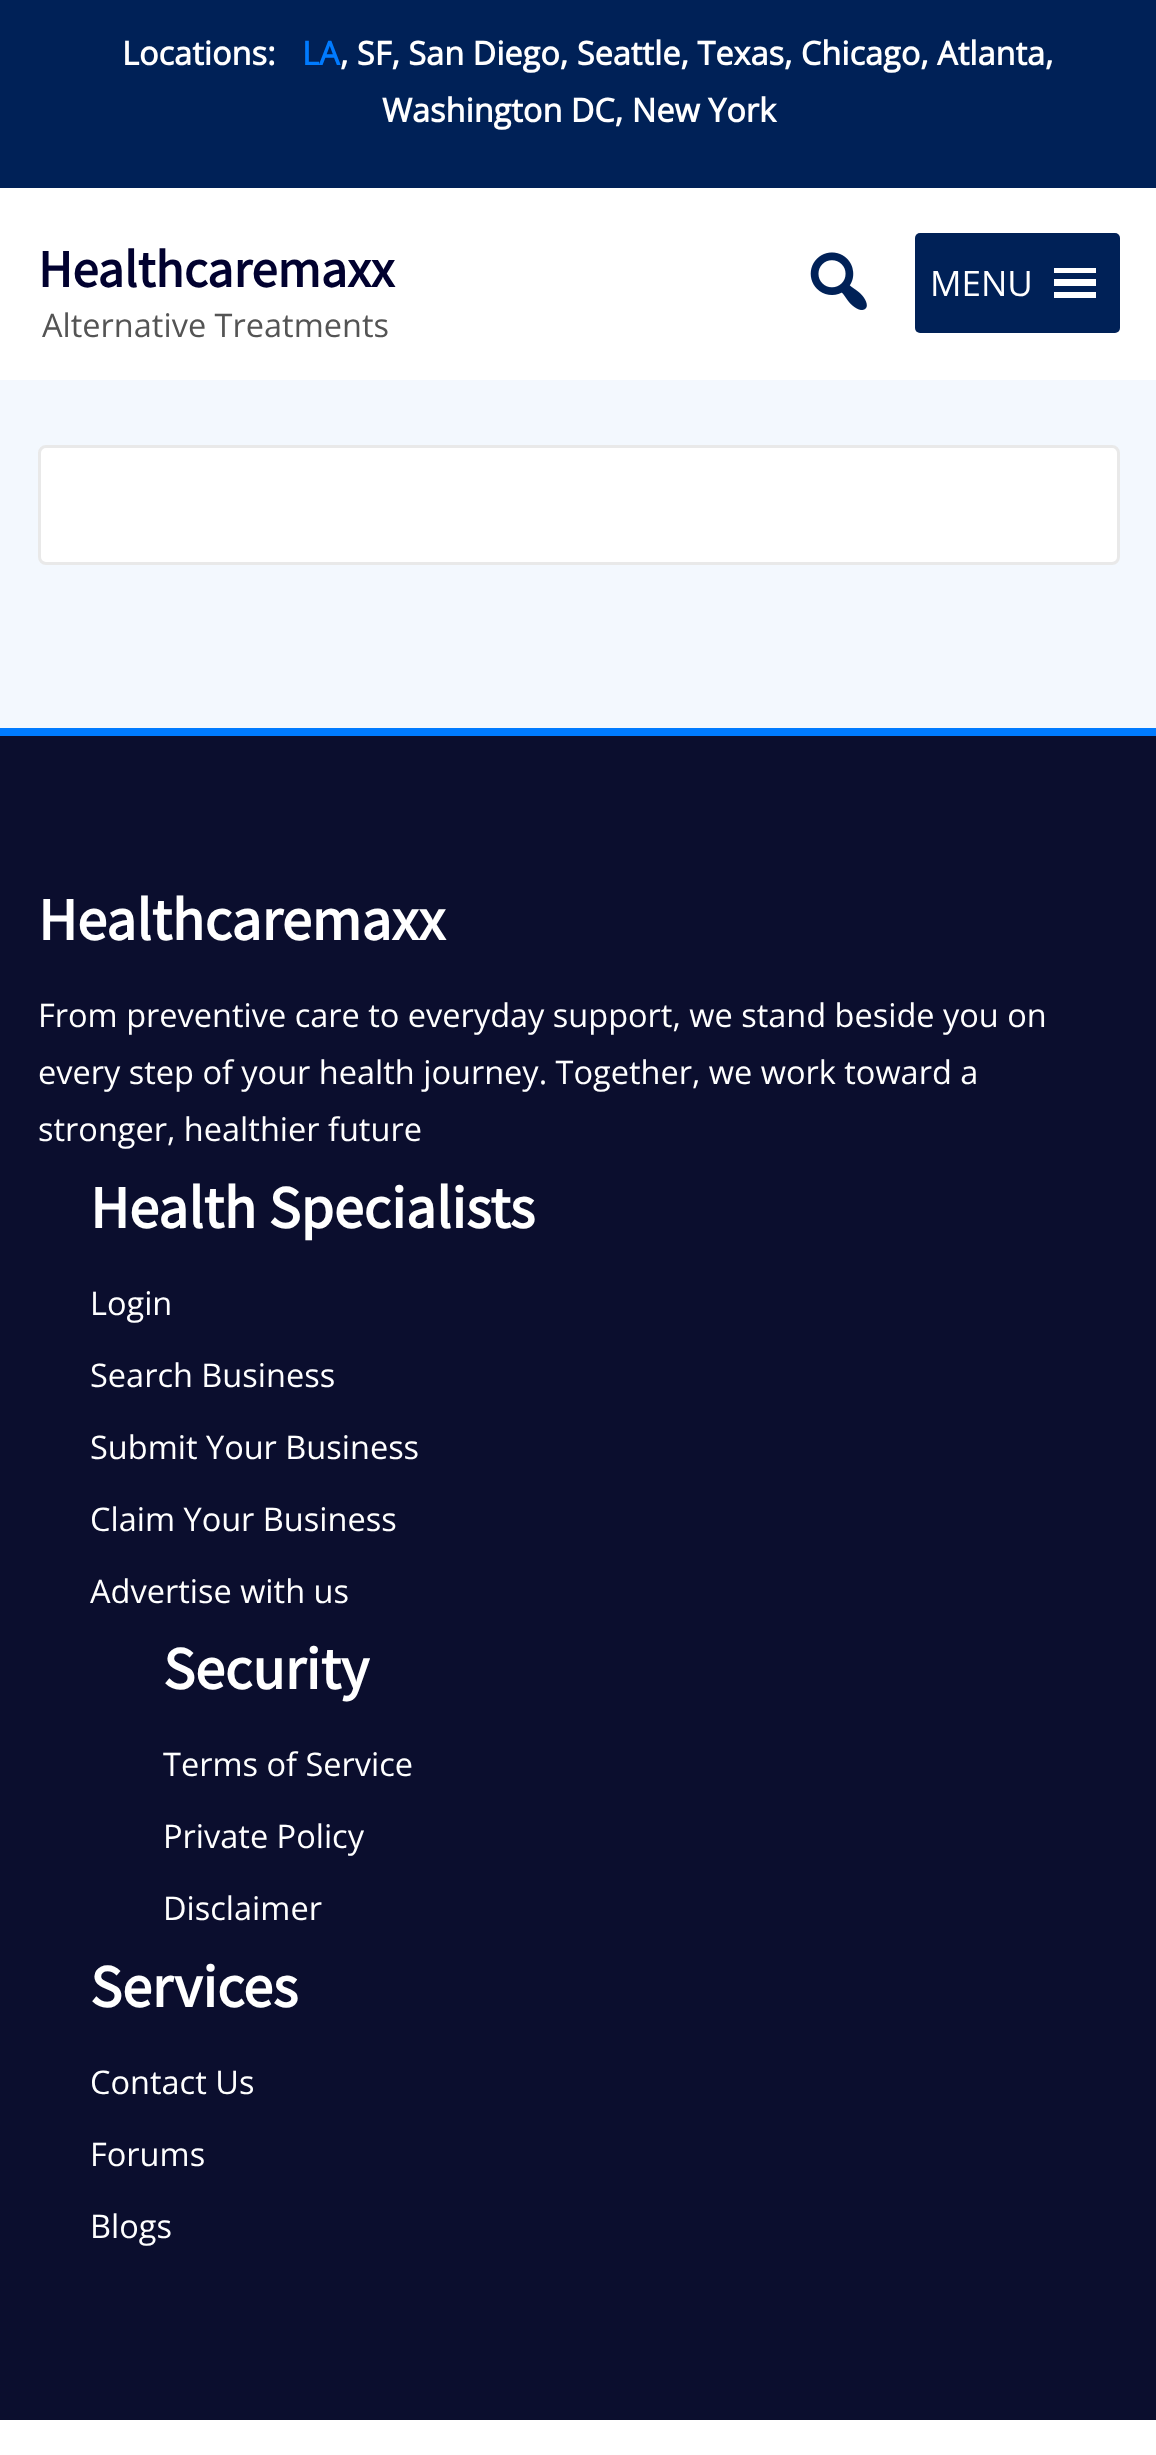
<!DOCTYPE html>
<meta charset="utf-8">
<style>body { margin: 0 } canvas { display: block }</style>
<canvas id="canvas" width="1156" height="2455"></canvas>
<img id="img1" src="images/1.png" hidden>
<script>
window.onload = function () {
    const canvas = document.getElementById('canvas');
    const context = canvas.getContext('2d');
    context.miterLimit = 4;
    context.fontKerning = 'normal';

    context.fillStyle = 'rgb(255, 255, 255)';
    context.fillRect(0, 0, 1156, 2455);
    context.fillStyle = 'rgb(0, 33, 87)';
    context.fillRect(0, 0, 1156, 188);
    context.drawImage(document.getElementById('img1'), 810, 252, 57, 58);
    context.beginPath();
    context.roundRect(915, 233, 205, 100, 5);
    context.fill();
    context.fillStyle = 'rgb(255, 255, 255)';
    context.beginPath();
    context.moveTo(1054, 298);
    context.lineTo(1096, 298);
    context.lineTo(1096, 292);
    context.lineTo(1054, 292);
    context.closePath();
    context.moveTo(1054, 268);
    context.lineTo(1054, 273);
    context.lineTo(1096, 273);
    context.lineTo(1096, 268);
    context.closePath();
    context.moveTo(1054, 286);
    context.lineTo(1096, 286);
    context.lineTo(1096, 279);
    context.lineTo(1054, 279);
    context.closePath();
    context.fill();
    context.fillStyle = 'rgb(243, 248, 254)';
    context.fillRect(0, 380, 1156, 348);
    context.fillStyle = 'rgb(255, 255, 255)';
    context.beginPath();
    context.roundRect(39.5, 446.5, 1079, 117, 6.5);
    context.fill();
    context.strokeStyle = 'rgb(233, 233, 233)';
    context.lineWidth = 3;
    context.stroke();
    context.fillStyle = 'rgb(11, 14, 46)';
    context.fillRect(0, 736, 1156, 1684);
    context.fillStyle = 'rgb(0, 123, 255)';
    context.fillRect(0, 728, 1156, 8);
    context.font = 'bold 32.5px Open Sans';
    context.fillStyle = 'rgb(255, 255, 255)';
    context.fillText('Locations:', 122, 65);
    context.fillStyle = 'rgb(0, 123, 255)';
    context.fillText('LA', 302, 65);
    context.fillStyle = 'rgb(255, 255, 255)';
    context.fillText(', SF, San Diego, Seattle, Texas, Chicago, Atlanta,', 340, 65);
    context.fillText('Washington DC, New York', 382, 122);
    context.font = 'bold 52.5px Source Sans Pro';
    context.fillStyle = 'rgb(1, 1, 47)';
    context.fillText('Healthcaremaxx', 38, 287);
    context.font = '32.5px Open Sans';
    context.fillStyle = 'rgb(84, 84, 84)';
    context.fillText('Alternative Treatments', 42, 337);
    context.font = '35px Open Sans';
    context.fillStyle = 'rgb(255, 255, 255)';
    context.fillText('MENU', 930, 296);
    context.font = 'bold 60px Source Sans Pro';
    context.fillText('Healthcaremaxx', 38, 940);
    context.font = '32.5px Open Sans';
    context.fillText('From preventive care to everyday support, we stand beside you on', 38, 1027);
    context.fillText('every step of your health journey. Together, we work toward a', 38, 1084);
    context.fillText('stronger, healthier future', 38, 1141);
    context.font = 'bold 60px Source Sans Pro';
    context.fillText('Health Specialists', 90, 1228);
    context.font = '32.5px Open Sans';
    context.fillText('Login', 90, 1315);
    context.fillText('Search Business', 90, 1387);
    context.fillText('Submit Your Business', 90, 1459);
    context.fillText('Claim Your Business', 90, 1531);
    context.fillText('Advertise with us', 90, 1603);
    context.font = 'bold 60px Source Sans Pro';
    context.fillText('Security', 163, 1689);
    context.font = '32.5px Open Sans';
    context.fillText('Terms of Service', 163, 1776);
    context.fillText('Private Policy', 163, 1848);
    context.fillText('Disclaimer', 163, 1920);
    context.font = 'bold 60px Source Sans Pro';
    context.fillText('Services', 90, 2007);
    context.font = '32.5px Open Sans';
    context.fillText('Contact Us', 90, 2094);
    context.fillText('Forums', 90, 2166);
    context.fillText('Blogs', 90, 2238);
};
</script>
